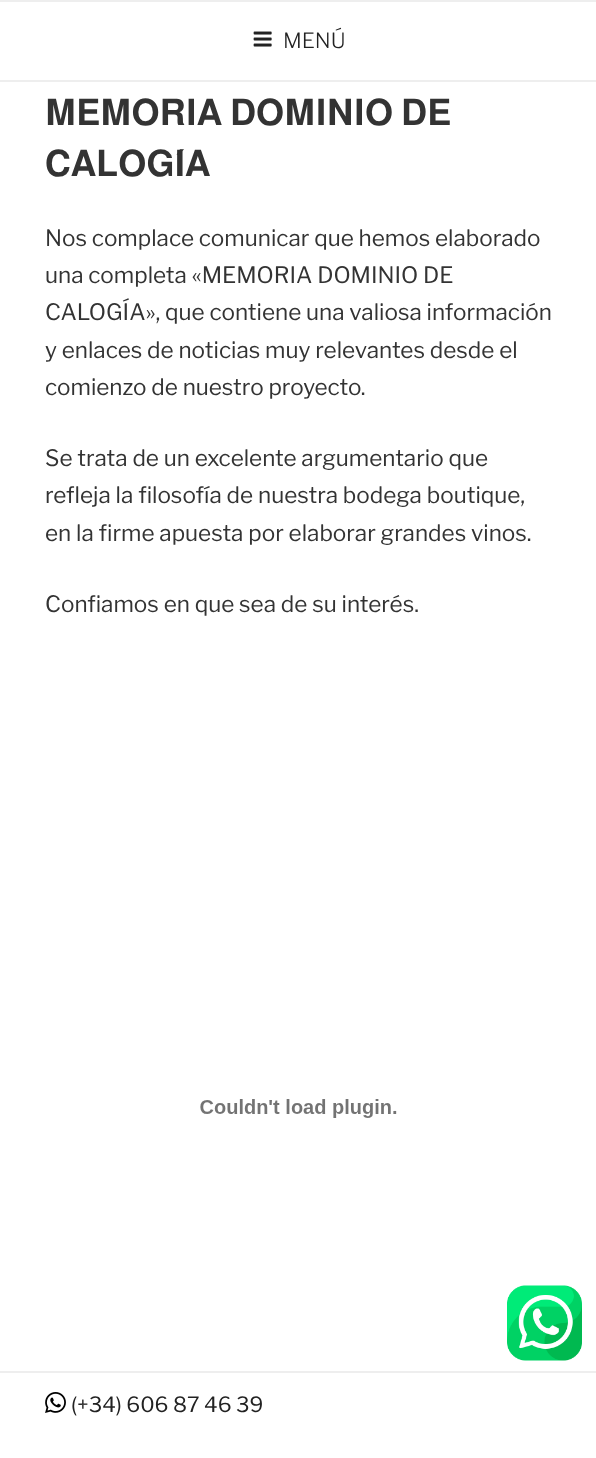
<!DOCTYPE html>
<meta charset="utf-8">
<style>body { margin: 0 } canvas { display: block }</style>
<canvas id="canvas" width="596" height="1458"></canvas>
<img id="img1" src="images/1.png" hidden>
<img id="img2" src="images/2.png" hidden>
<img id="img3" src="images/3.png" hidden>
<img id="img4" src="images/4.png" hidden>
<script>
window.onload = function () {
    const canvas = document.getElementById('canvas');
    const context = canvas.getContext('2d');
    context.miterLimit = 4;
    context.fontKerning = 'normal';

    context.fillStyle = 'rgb(255, 255, 255)';
    context.fillRect(0, 0, 596, 1458);
    context.fillStyle = 'rgb(238, 238, 238)';
    context.fillRect(0, 0, 596, 2);
    context.fillRect(0, 80, 596, 2);
    context.drawImage(document.getElementById('img1'), 253, 31, 19, 16);
    context.drawImage(document.getElementById('img2'), 200, 1099, 197, 19);
    context.fillRect(0, 1371, 596, 2);
    context.drawImage(document.getElementById('img3'), 507, 1285, 75, 76);
    context.drawImage(document.getElementById('img4'), 45, 1392, 21, 21);
    context.font = '100 21px "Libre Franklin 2"';
    context.fillStyle = 'rgb(34, 34, 34)';
    context.fillText('MENÚ', 283, 48);
    context.wordSpacing = '-1px';
    context.font = '36px FreeSans';
    context.fillStyle = 'rgb(51, 51, 51)';
    context.fillText('𝐌𝐄𝐌𝐎𝐑𝐈𝐀 𝐃𝐎𝐌𝐈𝐍𝐈𝐎 𝐃𝐄', 45, 125);
    context.wordSpacing = '0px';
    context.fillText('𝐂𝐀𝐋𝐎𝐆𝐈́𝐀', 45, 176);
    context.font = '100 22.5px Libre Franklin';
    context.fillText('Nos complace comunicar que hemos elaborado', 45, 246);
    context.fillText('una completa «MEMORIA DOMINIO DE', 45, 283);
    context.fillText('CALOGÍA», que contiene una valiosa información', 45, 320);
    context.fillText('y enlaces de noticias muy relevantes desde el', 45, 358);
    context.fillText('comienzo de nuestro proyecto.', 45, 395);
    context.fillText('Se trata de un excelente argumentario que', 45, 466);
    context.fillText('refleja la filosofía de nuestra bodega boutique,', 45, 503);
    context.fillText('en la firme apuesta por elaborar grandes vinos.', 45, 541);
    context.fillText('Confiamos en que sea de su interés.', 45, 612);
    context.font = '100 21px Libre Franklin';
    context.fillStyle = 'rgb(34, 34, 34)';
    context.fillText('(+34) 606 87 46 39', 71, 1412);
};
</script>
